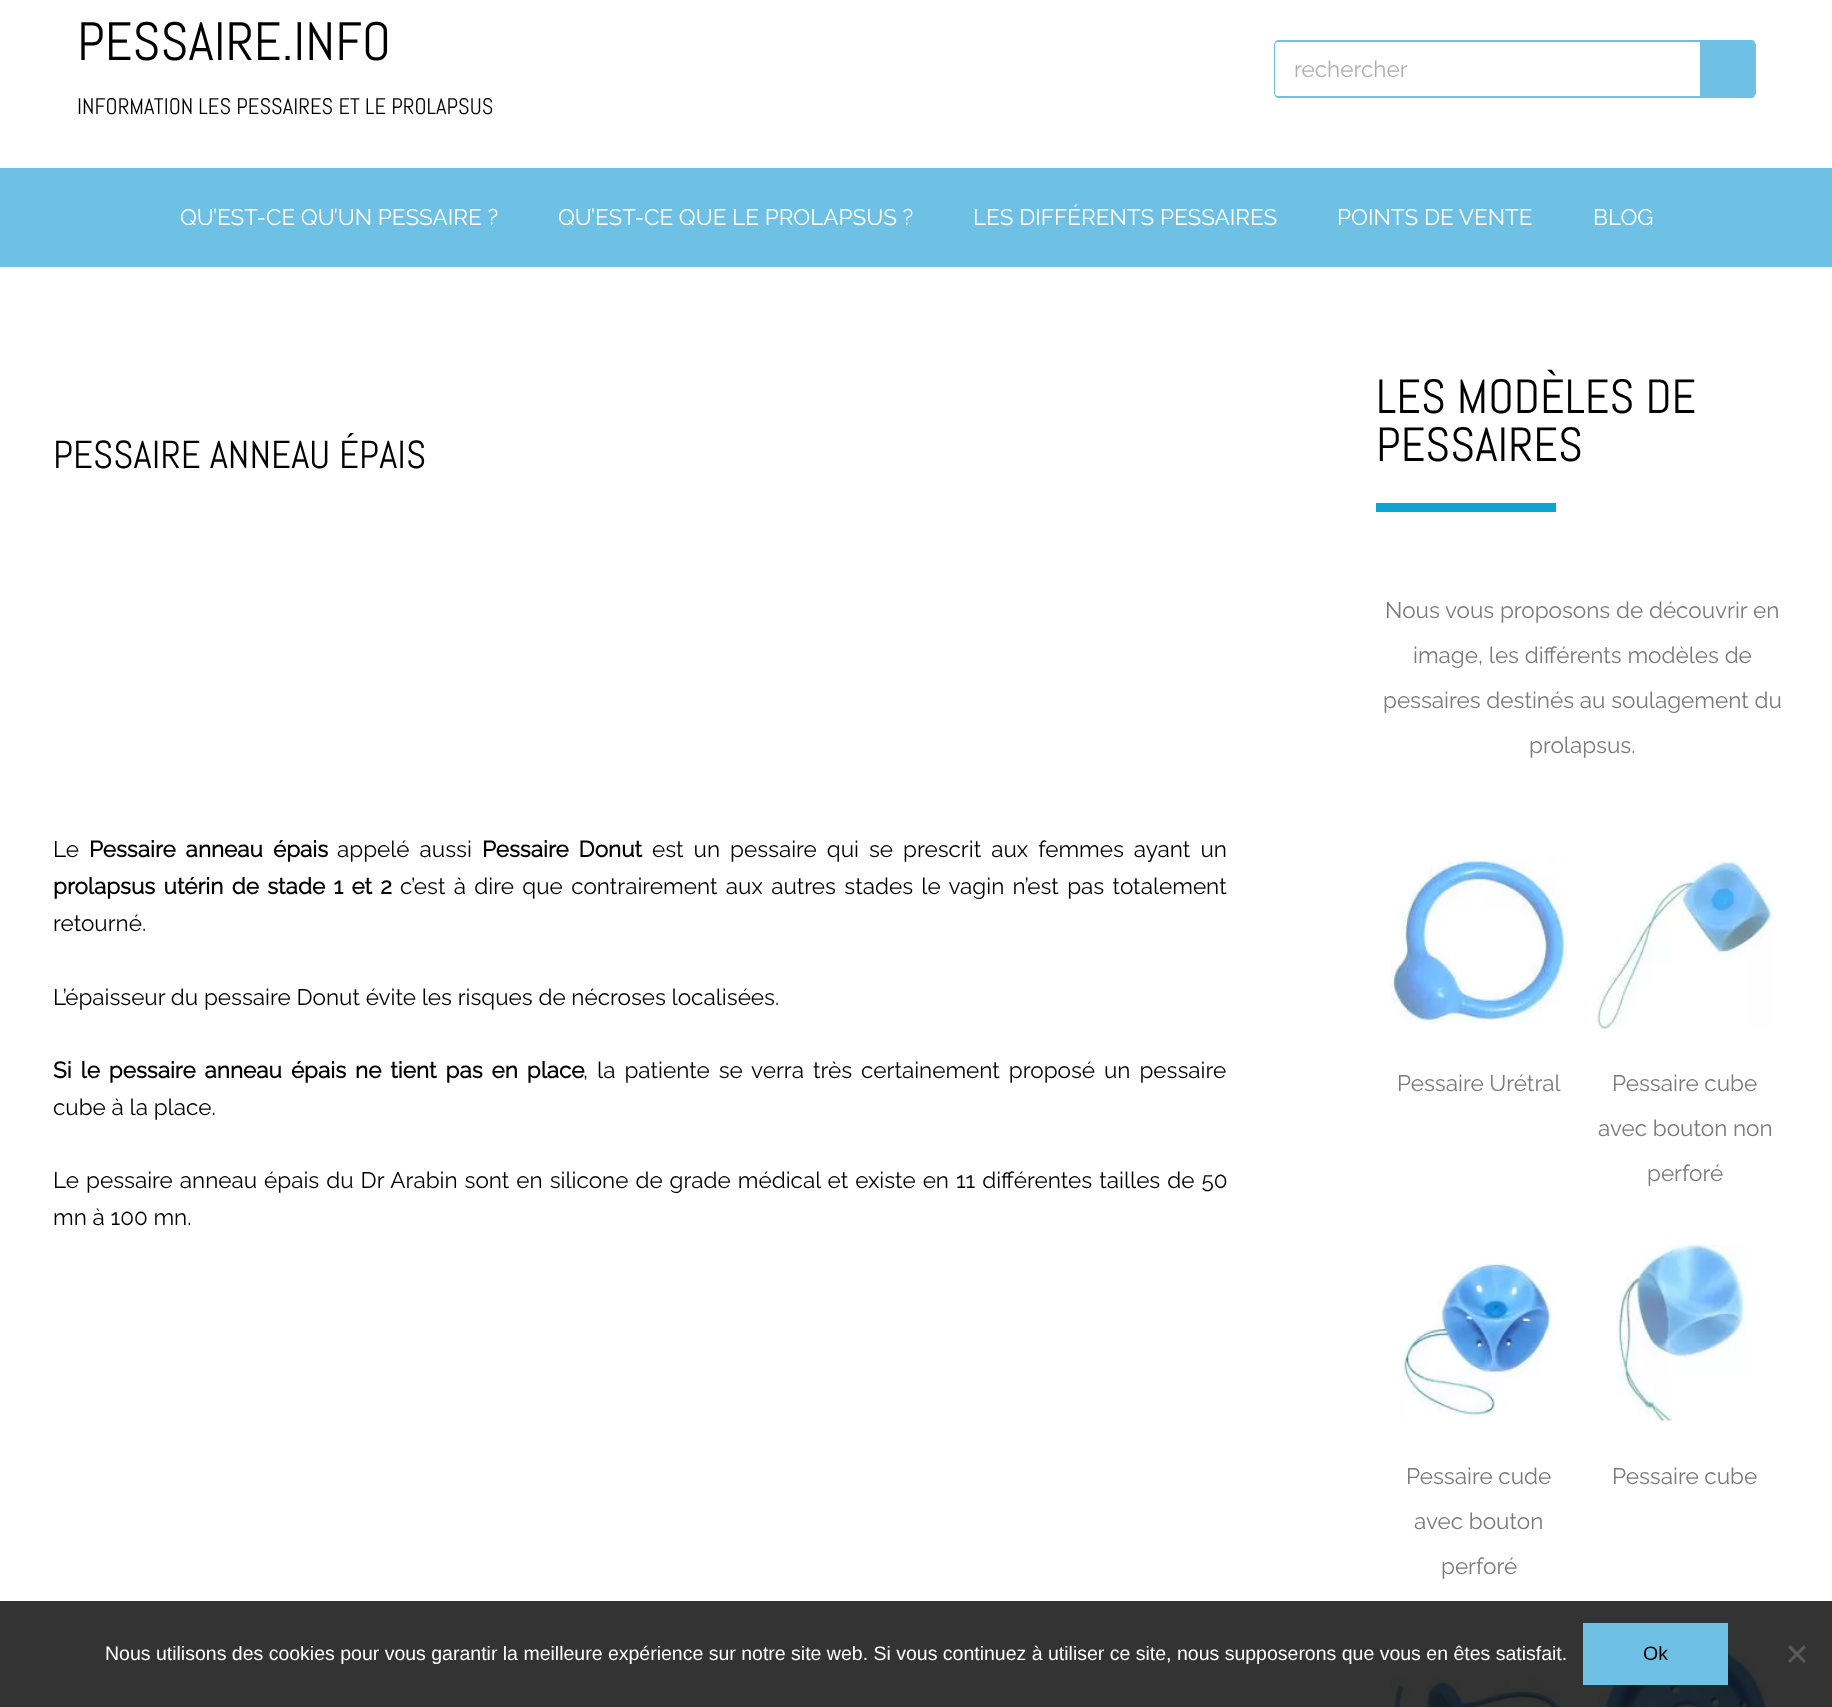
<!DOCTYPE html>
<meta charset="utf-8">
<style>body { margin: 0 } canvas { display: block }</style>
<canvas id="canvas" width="1832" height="1707"></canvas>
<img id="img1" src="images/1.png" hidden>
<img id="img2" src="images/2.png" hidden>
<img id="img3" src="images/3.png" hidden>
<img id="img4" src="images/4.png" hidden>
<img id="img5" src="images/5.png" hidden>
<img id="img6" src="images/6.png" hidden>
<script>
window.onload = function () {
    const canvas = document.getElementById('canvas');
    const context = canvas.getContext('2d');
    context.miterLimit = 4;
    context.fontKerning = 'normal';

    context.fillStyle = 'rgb(255, 255, 255)';
    context.fillRect(0, 0, 1832, 1707);
    context.fillStyle = 'rgb(51, 51, 51)';
    context.fillRect(0, 1601, 1832, 106);
    context.fillStyle = 'rgb(110, 193, 228)';
    context.beginPath();
    context.moveTo(1278, 40);
    context.lineTo(1752, 40);
    context.bezierCurveTo(1754, 40, 1756, 43, 1756, 45);
    context.lineTo(1756, 93);
    context.bezierCurveTo(1756, 95, 1754, 98, 1752, 98);
    context.lineTo(1278, 98);
    context.bezierCurveTo(1276, 98, 1274, 95, 1274, 93);
    context.lineTo(1274, 45);
    context.bezierCurveTo(1274, 43, 1276, 40, 1278, 40);
    context.closePath();
    context.moveTo(1278, 42);
    context.lineTo(1752, 42);
    context.bezierCurveTo(1754, 42, 1756, 43, 1756, 45);
    context.lineTo(1756, 93);
    context.bezierCurveTo(1756, 95, 1754, 96, 1752, 96);
    context.lineTo(1278, 96);
    context.bezierCurveTo(1276, 96, 1275, 95, 1275, 93);
    context.lineTo(1275, 45);
    context.bezierCurveTo(1275, 43, 1276, 42, 1278, 42);
    context.closePath();
    context.fill('evenodd');
    context.beginPath();
    context.moveTo(1700, 42);
    context.lineTo(1700, 96);
    context.lineTo(1752, 96);
    context.bezierCurveTo(1754, 96, 1756, 95, 1756, 93);
    context.lineTo(1756, 45);
    context.bezierCurveTo(1756, 43, 1754, 42, 1752, 42);
    context.closePath();
    context.fill();
    context.fillRect(0, 168, 1832, 99);
    context.fillStyle = 'rgb(13, 164, 211)';
    context.fillRect(1376, 503, 180, 9);
    context.drawImage(document.getElementById('img1'), 1390, 857, 178, 167);
    context.drawImage(document.getElementById('img2'), 1597, 860, 176, 169);
    context.drawImage(document.getElementById('img3'), 1400, 1263, 153, 155);
    context.drawImage(document.getElementById('img4'), 1616, 1245, 131, 176);
    context.drawImage(document.getElementById('img5'), 1390, 1674, 177, 33);
    context.drawImage(document.getElementById('img6'), 1597, 1636, 170, 71);
    context.fillStyle = 'rgb(110, 193, 228)';
    context.fillRect(1583, 1623, 145, 62);
    context.fillStyle = 'rgb(90, 90, 90)';
    context.beginPath();
    context.moveTo(1804, 1645);
    context.lineTo(1806, 1647.5);
    context.lineTo(1790, 1663);
    context.lineTo(1788, 1661);
    context.closePath();
    context.fill();
    context.beginPath();
    context.moveTo(1788, 1647.5);
    context.lineTo(1790, 1645);
    context.lineTo(1806, 1661);
    context.lineTo(1804, 1663);
    context.closePath();
    context.fill();
    context.font = '54px Abel';
    context.fillStyle = 'rgb(0, 0, 0)';
    context.fillText('PESSAIRE.INFO', 77, 60);
    context.font = '22.5px Abel';
    context.fillText('INFORMATION LES PESSAIRES ET LE PROLAPSUS', 77, 114);
    context.font = '100 22.5px Raleway';
    context.fillStyle = 'rgb(175, 175, 175)';
    context.fillText('rechercher', 1294, 77);
    context.fillStyle = 'rgb(255, 255, 255)';
    context.fillText('QU’EST-CE QU’UN PESSAIRE ?', 180, 225);
    context.fillText('QU’EST-CE QUE LE PROLAPSUS ?', 558, 225);
    context.fillText('LES DIFFÉRENTS PESSAIRES', 973, 225);
    context.fillText('POINTS DE VENTE', 1337, 225);
    context.fillText('BLOG', 1593, 225);
    context.font = '39px Abel';
    context.fillStyle = 'rgb(0, 0, 0)';
    context.fillText('PESSAIRE ANNEAU ÉPAIS', 53, 468);
    context.font = '100 22.5px Raleway';
    context.fillText('Le', 53, 857);
    context.wordSpacing = '4.25px';
    context.font = 'bold 22.5px Raleway';
    context.fillText('Pessaire anneau épais', 89, 857);
    context.font = '100 22.5px Raleway';
    context.fillText('appelé aussi', 337, 857);
    context.font = 'bold 22.5px Raleway';
    context.fillText('Pessaire Donut', 482, 857);
    context.font = '100 22.5px Raleway';
    context.fillText('est un pessaire qui se prescrit aux femmes ayant un', 652, 857);
    context.wordSpacing = '2.6px';
    context.font = 'bold 22.5px Raleway';
    context.fillText('prolapsus utérin de stade 1 et 2', 53, 894);
    context.font = '100 22.5px Raleway';
    context.fillText('c’est à dire que contrairement aux autres stades le vagin n’est pas totalement', 400, 894);
    context.wordSpacing = '0px';
    context.fillText('retourné.', 53, 931);
    context.fillText('L’épaisseur du pessaire Donut évite les risques de nécroses localisées.', 53, 1005);
    context.wordSpacing = '3.25px';
    context.font = 'bold 22.5px Raleway';
    context.fillText('Si le pessaire anneau épais ne tient pas en place', 53, 1078);
    context.font = '100 22.5px Raleway';
    context.fillText(', la patiente se verra très certainement proposé un pessaire', 583, 1078);
    context.wordSpacing = '0px';
    context.fillText('cube à la place.', 53, 1115);
    context.wordSpacing = '1.25px';
    context.fillText('Le pessaire anneau épais du Dr Arabin sont en silicone de grade médical et existe en 11 différentes tailles de 50', 53, 1188);
    context.wordSpacing = '0px';
    context.fillText('mn à 100 mn.', 53, 1225);
    context.font = '48px Abel';
    context.fillText('LES MODÈLES DE', 1376, 413);
    context.fillText('PESSAIRES', 1376, 461);
    context.font = '100 22.5px Raleway';
    context.fillStyle = 'rgb(122, 122, 122)';
    context.fillText('Nous vous proposons de découvrir en', 1385, 618);
    context.fillText('image, les différents modèles de', 1413, 663);
    context.fillText('pessaires destinés au soulagement du', 1383, 708);
    context.fillText('prolapsus.', 1529, 753);
    context.fillText('Pessaire Urétral', 1397, 1091);
    context.fillText('Pessaire cube', 1612, 1091);
    context.fillText('avec bouton non', 1598, 1136);
    context.fillText('perforé', 1647, 1181);
    context.fillText('Pessaire cude', 1406, 1484);
    context.fillText('avec bouton', 1414, 1529);
    context.fillText('perforé', 1441, 1574);
    context.fillText('Pessaire cube', 1612, 1484);
    context.font = '19.5px Liberation Sans';
    context.fillStyle = 'rgb(255, 255, 255)';
    context.fillText('Nous utilisons des cookies pour vous garantir la meilleure expérience sur notre site web. Si vous continuez à utiliser ce site, nous supposerons que vous en êtes satisfait.', 105, 1660);
    context.fillStyle = 'rgb(0, 0, 0)';
    context.fillText('Ok', 1643, 1660);
};
</script>
